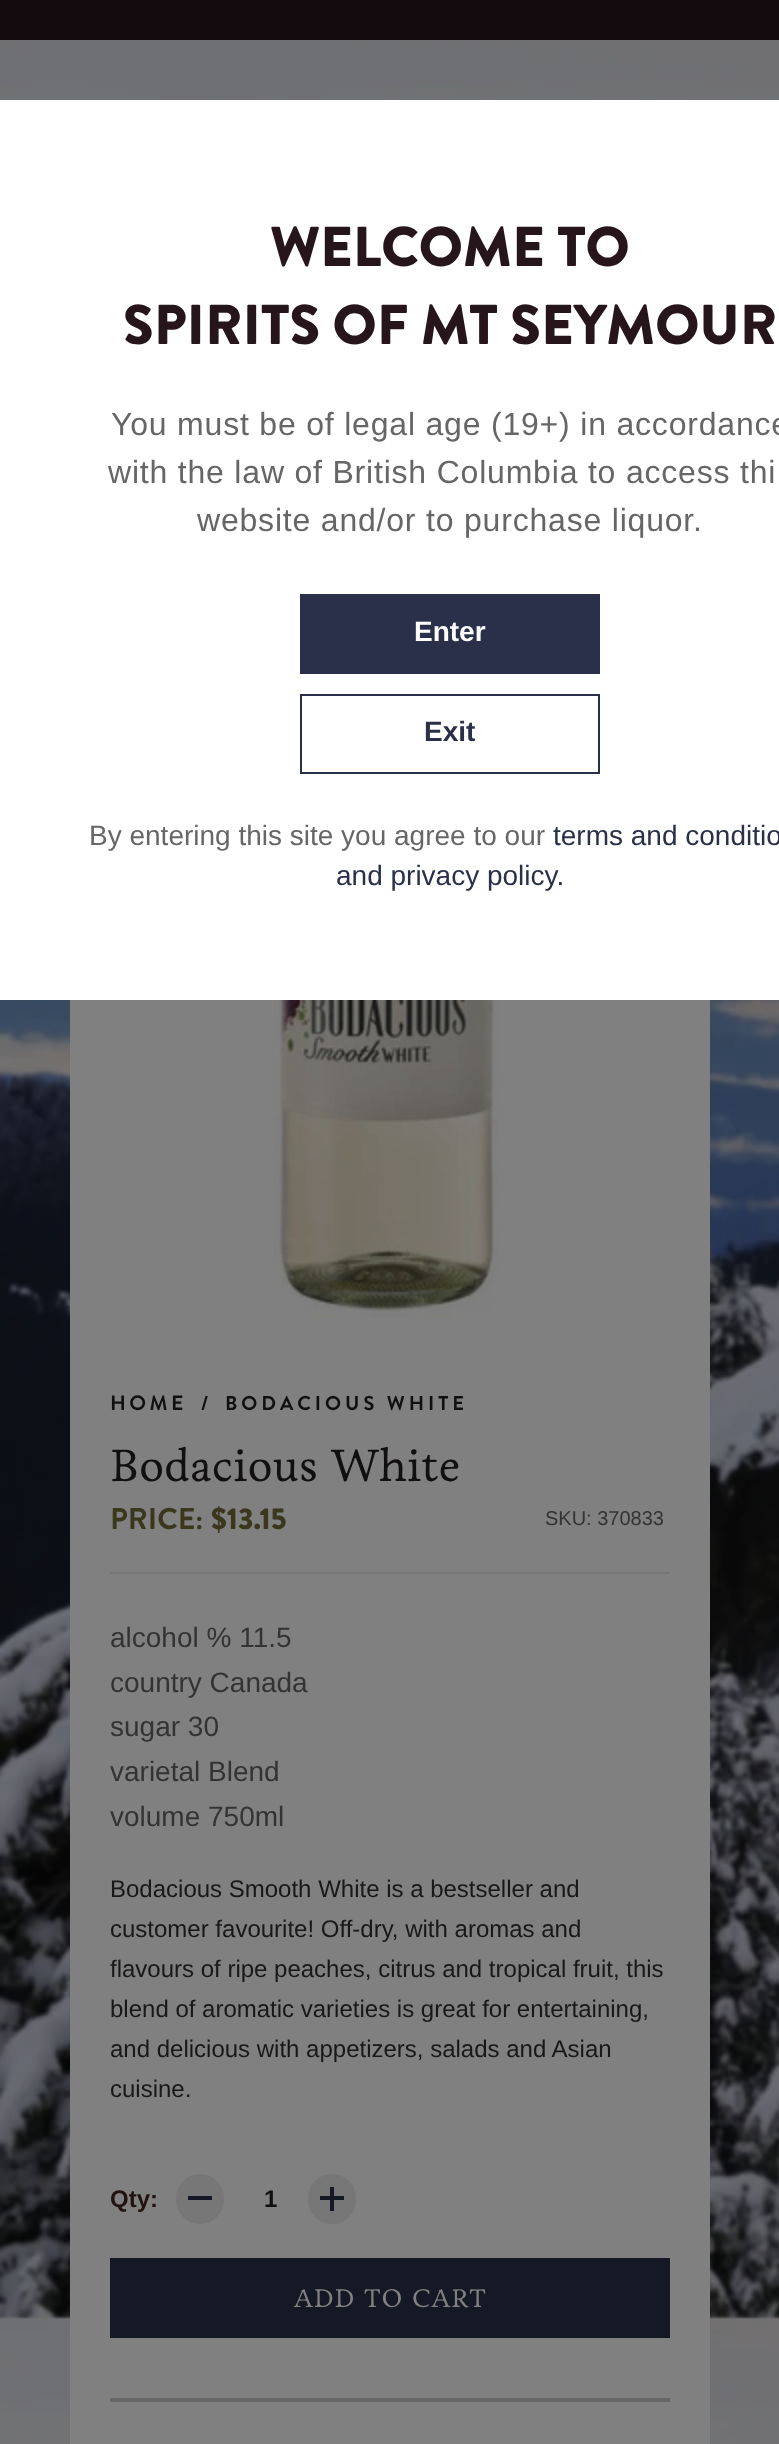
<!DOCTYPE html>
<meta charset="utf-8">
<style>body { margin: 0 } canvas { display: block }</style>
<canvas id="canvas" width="779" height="2444"></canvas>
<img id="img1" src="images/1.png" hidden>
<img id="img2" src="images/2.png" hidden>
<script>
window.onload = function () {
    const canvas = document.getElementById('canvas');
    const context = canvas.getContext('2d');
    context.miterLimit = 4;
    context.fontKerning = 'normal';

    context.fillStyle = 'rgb(255, 255, 255)';
    context.fillRect(0, 0, 779, 2444);
    context.drawImage(document.getElementById('img1'), 0, 40, 779, 2404);
    context.fillStyle = 'rgb(19, 11, 14)';
    context.fillRect(0, 0, 779, 40);
    context.fillStyle = 'rgb(255, 255, 255)';
    context.fillRect(0, 100, 779, 900);
    context.fillStyle = 'rgb(42, 48, 73)';
    context.fillRect(300, 594, 300, 80);
    context.strokeStyle = 'rgb(42, 48, 73)';
    context.lineWidth = 2;
    context.strokeRect(301, 695, 298, 78);
    context.fillStyle = 'rgb(128, 128, 128)';
    context.fillRect(70, 1000, 640, 1444);
    context.drawImage(document.getElementById('img2'), 274, 1000, 225, 318);
    context.fillStyle = 'rgb(102, 102, 102)';
    context.fillRect(110, 2398, 560, 4);
    context.fillStyle = 'rgb(121, 119, 118)';
    context.fillRect(110, 1572, 560, 2);
    context.fillStyle = 'rgb(119, 119, 119)';
    context.beginPath();
    context.roundRect(176, 2174, 48, 50, 24);
    context.fill();
    context.fillStyle = 'rgb(21, 24, 37)';
    context.fillRect(188, 2196, 24, 4);
    context.fillStyle = 'rgb(119, 119, 119)';
    context.beginPath();
    context.roundRect(308, 2174, 48, 50, 24);
    context.fill();
    context.fillStyle = 'rgb(21, 24, 37)';
    context.fillRect(320, 2196, 24, 4);
    context.fillRect(330, 2187, 4, 24);
    context.fillRect(110, 2258, 560, 80);
    context.font = '900 56px Brandon Grotesque';
    context.fillStyle = 'rgb(38, 21, 27)';
    context.fillText('WELCOME TO', 270, 266);
    context.fillText('SPIRITS OF MT SEYMOUR', 123, 344);
    context.letterSpacing = '0.8px';
    context.font = '32px Liberation Sans';
    context.fillStyle = 'rgb(102, 102, 102)';
    context.fillText('You must be of legal age (19+) in accordance', 111, 435);
    context.fillText('with the law of British Columbia to access thi', 108, 483);
    context.fillText('website and/or to purchase liquor.', 197, 531);
    context.letterSpacing = '0px';
    context.font = 'bold 28px Liberation Sans';
    context.fillStyle = 'rgb(255, 255, 255)';
    context.fillText('Enter', 414, 641);
    context.fillStyle = 'rgb(42, 48, 73)';
    context.fillText('Exit', 424, 741);
    context.font = '28px Liberation Sans';
    context.fillStyle = 'rgb(102, 102, 102)';
    context.fillText('By entering this site you agree to our', 89, 845);
    context.fillStyle = 'rgb(42, 48, 73)';
    context.fillText('terms and conditio', 553, 845);
    context.fillText('and privacy policy.', 336, 885);
    context.letterSpacing = '4px';
    context.font = 'bold 20px Brandon Grotesque';
    context.fillStyle = 'rgb(17, 15, 16)';
    context.fillText('HOME', 110, 1410);
    context.font = 'bold 20px "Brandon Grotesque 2"';
    context.fillText('/', 201, 1410);
    context.fillText('BODACIOUS WHITE', 225, 1410);
    context.letterSpacing = '0px';
    context.font = '46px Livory';
    context.fillText('Bodacious White', 110, 1481);
    context.font = 'bold 30px "Brandon Grotesque 2"';
    context.fillStyle = 'rgb(58, 55, 28)';
    context.fillText('PRICE:', 110, 1529);
    context.font = '900 30px Brandon Grotesque';
    context.fillText('$13.15', 211, 1529);
    context.font = '20px Liberation Sans';
    context.fillStyle = 'rgb(51, 51, 51)';
    context.fillText('SKU: 370833', 545, 1525);
    context.font = '28px Liberation Sans';
    context.fillText('alcohol % 11.5', 110, 1647);
    context.fillText('country Canada', 110, 1692);
    context.fillText('sugar 30', 110, 1736);
    context.fillText('varietal Blend', 110, 1781);
    context.fillText('volume 750ml', 110, 1826);
    context.font = '24px Liberation Sans';
    context.fillStyle = 'rgb(24, 24, 24)';
    context.fillText('Bodacious Smooth White is a bestseller and', 110, 1897);
    context.fillText('customer favourite! Off-dry, with aromas and', 110, 1937);
    context.fillText('flavours of ripe peaches, citrus and tropical fruit, this', 110, 1977);
    context.fillText('blend of aromatic varieties is great for entertaining,', 110, 2017);
    context.fillText('and delicious with appetizers, salads and Asian', 110, 2057);
    context.fillText('cuisine.', 110, 2097);
    context.font = 'bold 24px Liberation Sans';
    context.fillStyle = 'rgb(32, 19, 16)';
    context.fillText('Qty:', 110, 2207);
    context.fillStyle = 'rgb(17, 15, 16)';
    context.fillText('1', 264, 2207);
    context.letterSpacing = '1px';
    context.font = '26px Livory';
    context.fillStyle = 'rgb(128, 128, 128)';
    context.fillText('ADD TO CART', 294, 2307);
};
</script>
